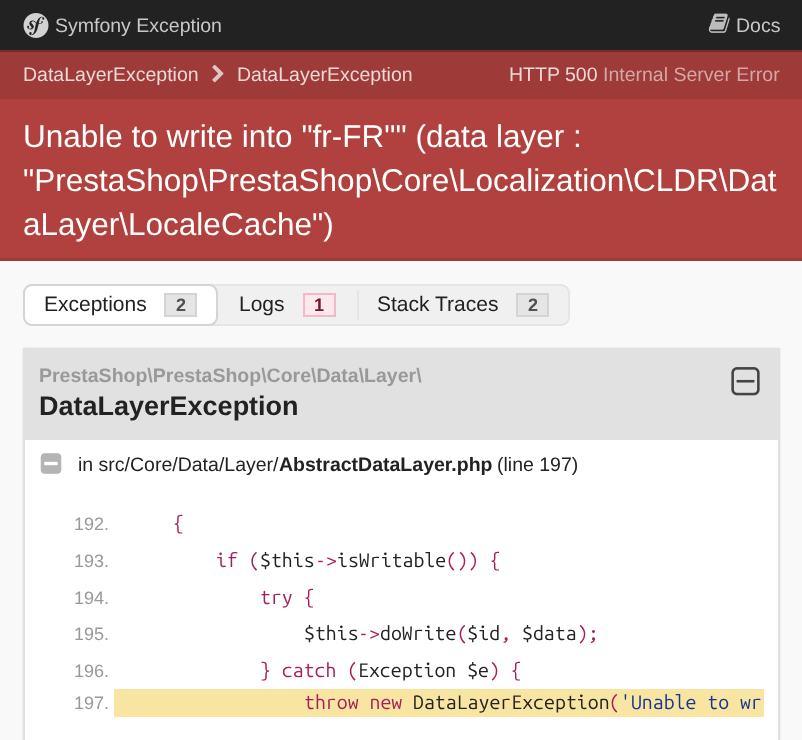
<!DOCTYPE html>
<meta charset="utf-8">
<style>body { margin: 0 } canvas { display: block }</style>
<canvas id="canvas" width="802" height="740"></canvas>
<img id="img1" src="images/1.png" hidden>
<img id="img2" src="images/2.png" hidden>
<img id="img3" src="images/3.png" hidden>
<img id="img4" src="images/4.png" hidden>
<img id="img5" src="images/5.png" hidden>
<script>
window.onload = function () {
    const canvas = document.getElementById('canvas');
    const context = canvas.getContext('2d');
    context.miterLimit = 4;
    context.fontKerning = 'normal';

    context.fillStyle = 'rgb(249, 249, 249)';
    context.fillRect(0, 0, 802, 740);
    context.fillStyle = 'rgb(34, 34, 34)';
    context.fillRect(0, 0, 802, 50);
    context.drawImage(document.getElementById('img1'), 23, 13, 26, 25);
    context.drawImage(document.getElementById('img2'), 708, 13, 22, 20);
    context.fillStyle = 'rgb(176, 65, 62)';
    context.fillRect(0, 99, 802, 159);
    context.fillStyle = 'rgb(158, 59, 56)';
    context.fillRect(0, 52, 802, 47);
    context.fillStyle = 'rgb(123, 46, 43)';
    context.fillRect(0, 50, 802, 1);
    context.fillStyle = 'rgb(111, 41, 39)';
    context.fillRect(0, 51, 802, 1);
    context.fillStyle = 'rgb(158, 59, 56)';
    context.fillRect(0, 258, 802, 3);
    context.drawImage(document.getElementById('img3'), 212, 65, 12, 18);
    context.fillStyle = 'rgb(240, 240, 240)';
    context.beginPath();
    context.roundRect(24, 285, 545, 40, 8);
    context.fill();
    context.strokeStyle = 'rgb(229, 229, 229)';
    context.lineWidth = 2;
    context.stroke();
    context.fillStyle = 'rgb(255, 255, 255)';
    context.beginPath();
    context.roundRect(24, 285, 193, 40, 8);
    context.fill();
    context.strokeStyle = 'rgb(212, 212, 212)';
    context.stroke();
    context.fillStyle = 'rgb(229, 229, 229)';
    context.beginPath();
    context.rect(165, 294, 31, 22);
    context.fill();
    context.stroke();
    context.fillStyle = 'rgb(252, 233, 237)';
    context.beginPath();
    context.rect(304, 294, 31, 22);
    context.fill();
    context.strokeStyle = 'rgb(245, 184, 197)';
    context.stroke();
    context.fillStyle = 'rgb(229, 229, 229)';
    context.fillRect(357, 290, 2, 30);
    context.beginPath();
    context.rect(517, 294, 31, 22);
    context.fill();
    context.strokeStyle = 'rgb(212, 212, 212)';
    context.stroke();
    context.fillStyle = 'rgba(128, 128, 128, 0.2)';
    context.filter = 'blur(1px)';
    context.beginPath();
    context.rect(23, 348, 757, 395);
    context.fill();
    context.filter = 'none';
    context.fillStyle = 'rgb(255, 255, 255)';
    context.fillRect(25, 440, 753, 300);
    context.strokeStyle = 'rgb(224, 224, 224)';
    context.strokeRect(24, 349, 755, 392);
    context.drawImage(document.getElementById('img4'), 731, 367, 29, 29);
    context.drawImage(document.getElementById('img5'), 40, 453, 22, 21);
    context.fillStyle = 'rgb(247, 229, 161)';
    context.fillRect(114, 689, 650, 28);
    context.font = '19.5px Liberation Sans';
    context.fillStyle = 'rgb(200, 200, 200)';
    context.fillText('Symfony Exception', 55, 32);
    context.fillText('Docs', 736, 32);
    context.fillStyle = 'rgb(236, 216, 215)';
    context.fillText('DataLayerException', 23, 81);
    context.fillText('DataLayerException', 237, 81);
    context.fillText('HTTP 500', 509, 81);
    context.fillStyle = 'rgb(212, 168, 167)';
    context.fillText('Internal Server Error', 603, 81);
    context.font = '31.5px Liberation Sans';
    context.fillStyle = 'rgb(255, 255, 255)';
    context.fillText('Unable to write into "fr-FR"" (data layer :', 23, 147);
    context.fillText('"PrestaShop\\PrestaShop\\Core\\Localization\\CLDR\\Dat', 23, 191);
    context.fillText('aLayer\\LocaleCache")', 23, 235);
    context.font = '21px Liberation Sans';
    context.fillStyle = 'rgb(34, 34, 34)';
    context.fillText('Exceptions', 44, 311);
    context.font = 'bold 18px Liberation Sans';
    context.fillStyle = 'rgb(82, 82, 82)';
    context.fillText('2', 176, 311);
    context.font = '21px Liberation Sans';
    context.fillStyle = 'rgb(34, 34, 34)';
    context.fillText('Logs', 239, 311);
    context.font = 'bold 18px Liberation Sans';
    context.fillStyle = 'rgb(131, 18, 42)';
    context.fillText('1', 314, 311);
    context.font = '21px Liberation Sans';
    context.fillStyle = 'rgb(34, 34, 34)';
    context.fillText('Stack Traces', 377, 311);
    context.font = 'bold 18px Liberation Sans';
    context.fillStyle = 'rgb(82, 82, 82)';
    context.fillText('2', 528, 311);
    context.font = 'bold 19.5px Liberation Sans';
    context.fillStyle = 'rgb(153, 153, 153)';
    context.fillText('PrestaShop\\PrestaShop\\Core\\Data\\Layer\\', 39, 382);
    context.font = 'bold 27px Liberation Sans';
    context.fillStyle = 'rgb(34, 34, 34)';
    context.fillText('DataLayerException', 39, 415);
    context.font = '19.5px Liberation Sans';
    context.fillText('in src/Core/Data/Layer/', 78, 471);
    context.font = 'bold 19.5px Liberation Sans';
    context.fillText('AbstractDataLayer.php', 279, 471);
    context.font = '19.5px Liberation Sans';
    context.fillText('(line 197)', 497, 471);
    context.font = '18px Liberation Sans';
    context.fillStyle = 'rgb(153, 153, 153)';
    context.fillText('192.', 74, 530);
    context.font = '19.5px Ubuntu Mono';
    context.fillStyle = 'rgb(167, 29, 93)';
    context.fillText('{', 173, 530);
    context.font = '18px Liberation Sans';
    context.fillStyle = 'rgb(153, 153, 153)';
    context.fillText('193.', 74, 567);
    context.font = '19.5px Ubuntu Mono';
    context.fillStyle = 'rgb(167, 29, 93)';
    context.fillText('if (', 216, 567);
    context.fillStyle = 'rgb(34, 34, 34)';
    context.fillText('$this', 260, 567);
    context.fillStyle = 'rgb(167, 29, 93)';
    context.fillText('->', 315, 567);
    context.fillStyle = 'rgb(34, 34, 34)';
    context.fillText('isWritable', 337, 567);
    context.fillStyle = 'rgb(167, 29, 93)';
    context.fillText('()) {', 446, 567);
    context.font = '18px Liberation Sans';
    context.fillStyle = 'rgb(153, 153, 153)';
    context.fillText('194.', 74, 604);
    context.font = '19.5px Ubuntu Mono';
    context.fillStyle = 'rgb(167, 29, 93)';
    context.fillText('try {', 260, 604);
    context.fillStyle = 'rgb(34, 34, 34)';
    context.fillText('$this', 304, 640);
    context.fillText('doWrite $id', 380, 640);
    context.font = '18px Liberation Sans';
    context.fillStyle = 'rgb(153, 153, 153)';
    context.fillText('195.', 74, 640);
    context.font = '19.5px Ubuntu Mono';
    context.fillStyle = 'rgb(167, 29, 93)';
    context.fillText('->', 358, 640);
    context.fillText('(', 457, 640);
    context.fillStyle = 'rgb(34, 34, 34)';
    context.fillText('$data', 522, 640);
    context.fillStyle = 'rgb(167, 29, 93)';
    context.fillText(');', 577, 640);
    context.fillText(',', 500, 640);
    context.font = '18px Liberation Sans';
    context.fillStyle = 'rgb(153, 153, 153)';
    context.fillText('196.', 74, 677);
    context.font = '19.5px Ubuntu Mono';
    context.fillStyle = 'rgb(167, 29, 93)';
    context.fillText('} catch (', 260, 677);
    context.fillStyle = 'rgb(34, 34, 34)';
    context.fillText('Exception $e', 358, 677);
    context.fillStyle = 'rgb(167, 29, 93)';
    context.fillText(') {', 489, 677);
    context.font = '18px Liberation Sans';
    context.fillStyle = 'rgb(153, 153, 153)';
    context.fillText('197.', 74, 709);
    context.font = '19.5px Ubuntu Mono';
    context.fillStyle = 'rgb(167, 29, 93)';
    context.fillText('throw new', 304, 709);
    context.fillStyle = 'rgb(34, 34, 34)';
    context.fillText('DataLayerException', 413, 709);
    context.fillStyle = 'rgb(167, 29, 93)';
    context.fillText('(', 609, 709);
    context.fillStyle = 'rgb(24, 54, 145)';
    context.fillText('\'Unable to wr', 620, 709);
};
</script>
